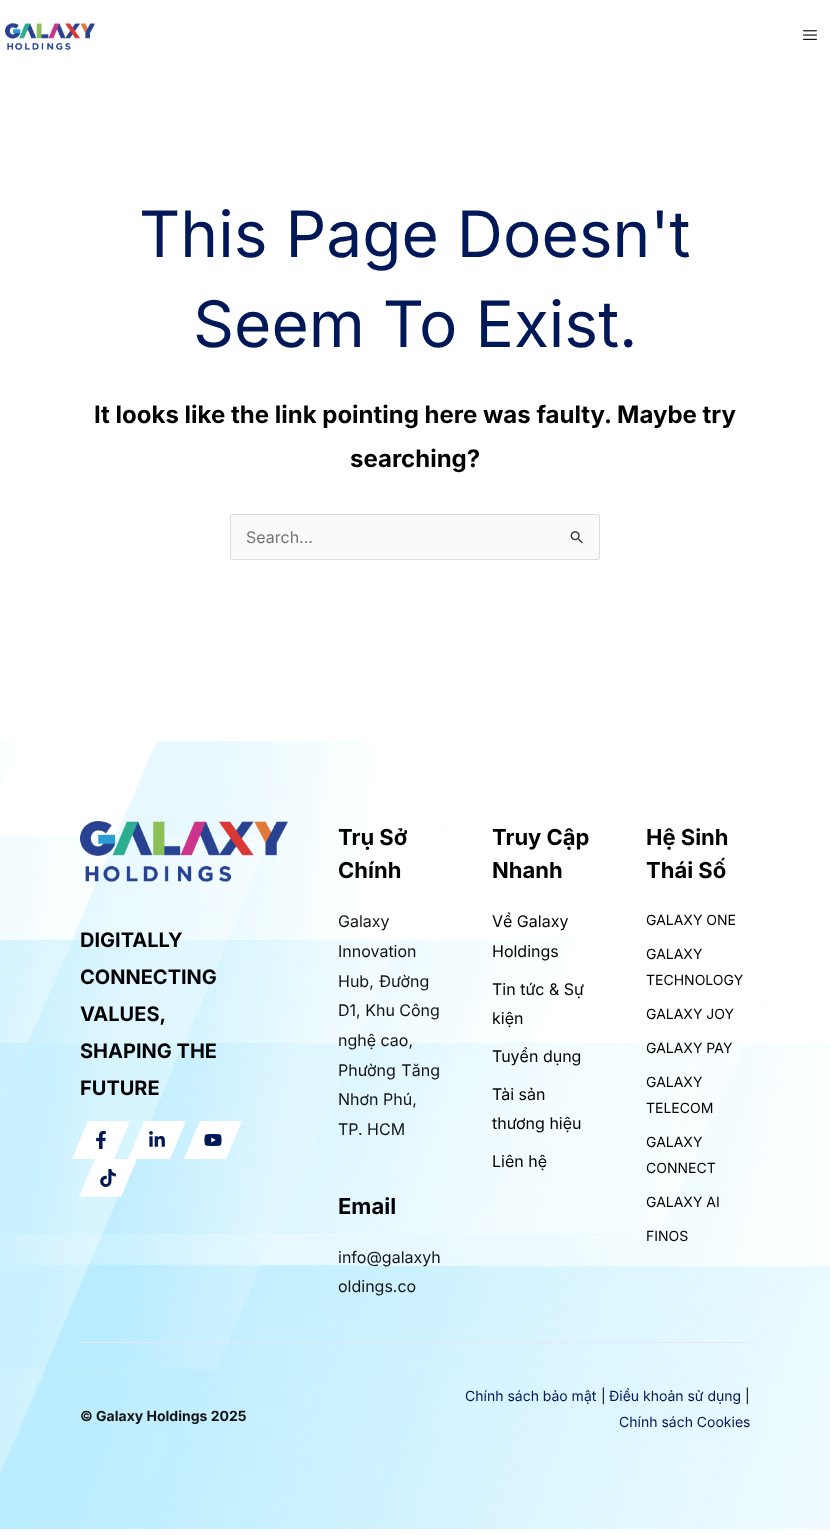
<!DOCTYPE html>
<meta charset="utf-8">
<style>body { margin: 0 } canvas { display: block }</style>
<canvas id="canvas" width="830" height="1535"></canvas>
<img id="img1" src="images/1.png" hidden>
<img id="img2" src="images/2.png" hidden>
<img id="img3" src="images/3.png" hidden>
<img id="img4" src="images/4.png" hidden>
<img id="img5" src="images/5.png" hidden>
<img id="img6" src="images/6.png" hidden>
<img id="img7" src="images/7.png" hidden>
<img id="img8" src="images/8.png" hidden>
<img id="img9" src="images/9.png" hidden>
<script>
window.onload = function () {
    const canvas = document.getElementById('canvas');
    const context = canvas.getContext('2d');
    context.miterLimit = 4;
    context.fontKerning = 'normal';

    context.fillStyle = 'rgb(255, 255, 255)';
    context.fillRect(0, 0, 830, 1535);
    context.drawImage(document.getElementById('img1'), 5, 22, 90, 28);
    context.drawImage(document.getElementById('img2'), 803, 30, 14, 10);
    context.fillStyle = 'rgb(250, 250, 250)';
    context.beginPath();
    context.roundRect(230.5, 514.5, 369, 45, 1.5);
    context.fill();
    context.strokeStyle = 'rgb(221, 221, 221)';
    context.stroke();
    context.drawImage(document.getElementById('img3'), 570, 531, 13, 13);
    context.drawImage(document.getElementById('img4'), 0, 741, 830, 788);
    context.drawImage(document.getElementById('img5'), 80, 821, 208, 61);
    context.fillStyle = 'rgb(255, 255, 255)';
    context.beginPath();
    context.moveTo(88, 1121);
    context.lineTo(130, 1121);
    context.lineTo(114, 1159);
    context.lineTo(72, 1159);
    context.closePath();
    context.fill();
    context.drawImage(document.getElementById('img6'), 96, 1131, 10, 18);
    context.beginPath();
    context.moveTo(144, 1121);
    context.lineTo(186, 1121);
    context.lineTo(170, 1159);
    context.lineTo(128, 1159);
    context.closePath();
    context.fill();
    context.drawImage(document.getElementById('img7'), 149, 1131, 16, 16);
    context.beginPath();
    context.moveTo(200, 1121);
    context.lineTo(242, 1121);
    context.lineTo(226, 1159);
    context.lineTo(184, 1159);
    context.closePath();
    context.fill();
    context.drawImage(document.getElementById('img8'), 204, 1134, 18, 12);
    context.beginPath();
    context.moveTo(95, 1159);
    context.lineTo(137, 1159);
    context.lineTo(121, 1197);
    context.lineTo(79, 1197);
    context.closePath();
    context.fill();
    context.drawImage(document.getElementById('img9'), 100, 1169, 16, 18);
    context.fillStyle = 'rgb(229, 232, 240)';
    context.fillRect(80, 1342, 670, 1);
    context.font = '64px Inter';
    context.fillStyle = 'rgb(1, 24, 88)';
    context.fillText('This Page Doesn\'t', 139, 257);
    context.fillText('Seem To Exist.', 193, 347);
    context.font = 'bold 24px Inter';
    context.fillStyle = 'rgb(0, 0, 0)';
    context.fillText('It looks like the link pointing here was faulty. Maybe try', 94, 423);
    context.fillText('searching?', 350, 467);
    context.font = '16px Inter';
    context.fillStyle = 'rgb(117, 117, 117)';
    context.fillText('Search...', 246, 543);
    context.font = 'bold 20px Inter';
    context.fillStyle = 'rgb(0, 0, 0)';
    context.fillText('DIGITALLY', 80, 947);
    context.fillText('CONNECTING', 80, 984);
    context.fillText('VALUES,', 80, 1021);
    context.fillText('SHAPING THE', 80, 1058);
    context.fillText('FUTURE', 80, 1095);
    context.font = 'bold 22px Inter';
    context.fillText('Trụ Sở', 338, 845);
    context.fillText('Chính', 338, 878);
    context.font = '16px Inter';
    context.fillStyle = 'rgb(19, 19, 19)';
    context.fillText('Galaxy', 338, 927);
    context.fillText('Innovation', 338, 957);
    context.wordSpacing = '1px';
    context.fillText('Hub, Đường', 338, 987);
    context.wordSpacing = '0px';
    context.fillText('D1, Khu Công', 338, 1016);
    context.fillText('nghệ cao,', 338, 1046);
    context.wordSpacing = '1px';
    context.fillText('Phường Tăng', 338, 1076);
    context.wordSpacing = '0px';
    context.fillText('Nhơn Phú,', 338, 1105);
    context.fillText('TP. HCM', 338, 1135);
    context.font = 'bold 22px Inter';
    context.fillStyle = 'rgb(0, 0, 0)';
    context.fillText('Email', 338, 1214);
    context.font = '16px Inter';
    context.fillStyle = 'rgb(19, 19, 19)';
    context.fillText('info@galaxyh', 338, 1263);
    context.fillText('oldings.co', 338, 1292);
    context.font = 'bold 22px Inter';
    context.fillStyle = 'rgb(0, 0, 0)';
    context.fillText('Truy Cập', 492, 845);
    context.fillText('Nhanh', 492, 878);
    context.font = '16px Inter';
    context.fillText('Về Galaxy', 492, 927);
    context.fillText('Holdings', 492, 957);
    context.fillText('Tin tức & Sự', 492, 995);
    context.fillText('kiện', 492, 1024);
    context.fillText('Tuyển dụng', 492, 1062);
    context.fillText('Tài sản', 492, 1100);
    context.fillText('thương hiệu', 492, 1129);
    context.fillText('Liên hệ', 492, 1167);
    context.font = 'bold 22px Inter';
    context.fillText('Hệ Sinh', 646, 845);
    context.fillText('Thái Số', 646, 878);
    context.font = '14px Inter';
    context.fillText('GALAXY ONE', 646, 925);
    context.fillText('GALAXY', 646, 959);
    context.fillText('TECHNOLOGY', 646, 985);
    context.fillText('GALAXY JOY', 646, 1019);
    context.fillText('GALAXY PAY', 646, 1053);
    context.fillText('GALAXY', 646, 1087);
    context.fillText('TELECOM', 646, 1113);
    context.fillText('GALAXY', 646, 1147);
    context.fillText('CONNECT', 646, 1173);
    context.fillText('GALAXY AI', 646, 1207);
    context.fillText('FINOS', 646, 1241);
    context.font = 'bold 14px Inter';
    context.fillStyle = 'rgb(19, 19, 19)';
    context.fillText('© Galaxy Holdings 2025', 80, 1421);
    context.font = '14px Inter';
    context.fillStyle = 'rgb(1, 24, 88)';
    context.fillText('Chính sách bảo mật', 465, 1401);
    context.fillStyle = 'rgb(0, 0, 0)';
    context.fillText('|', 601, 1401);
    context.fillStyle = 'rgb(1, 24, 88)';
    context.fillText('Điều khoản sử dụng', 609, 1401);
    context.fillStyle = 'rgb(0, 0, 0)';
    context.fillText('|', 745, 1401);
    context.fillStyle = 'rgb(1, 24, 88)';
    context.fillText('Chính sách Cookies', 619, 1427);
};
</script>
